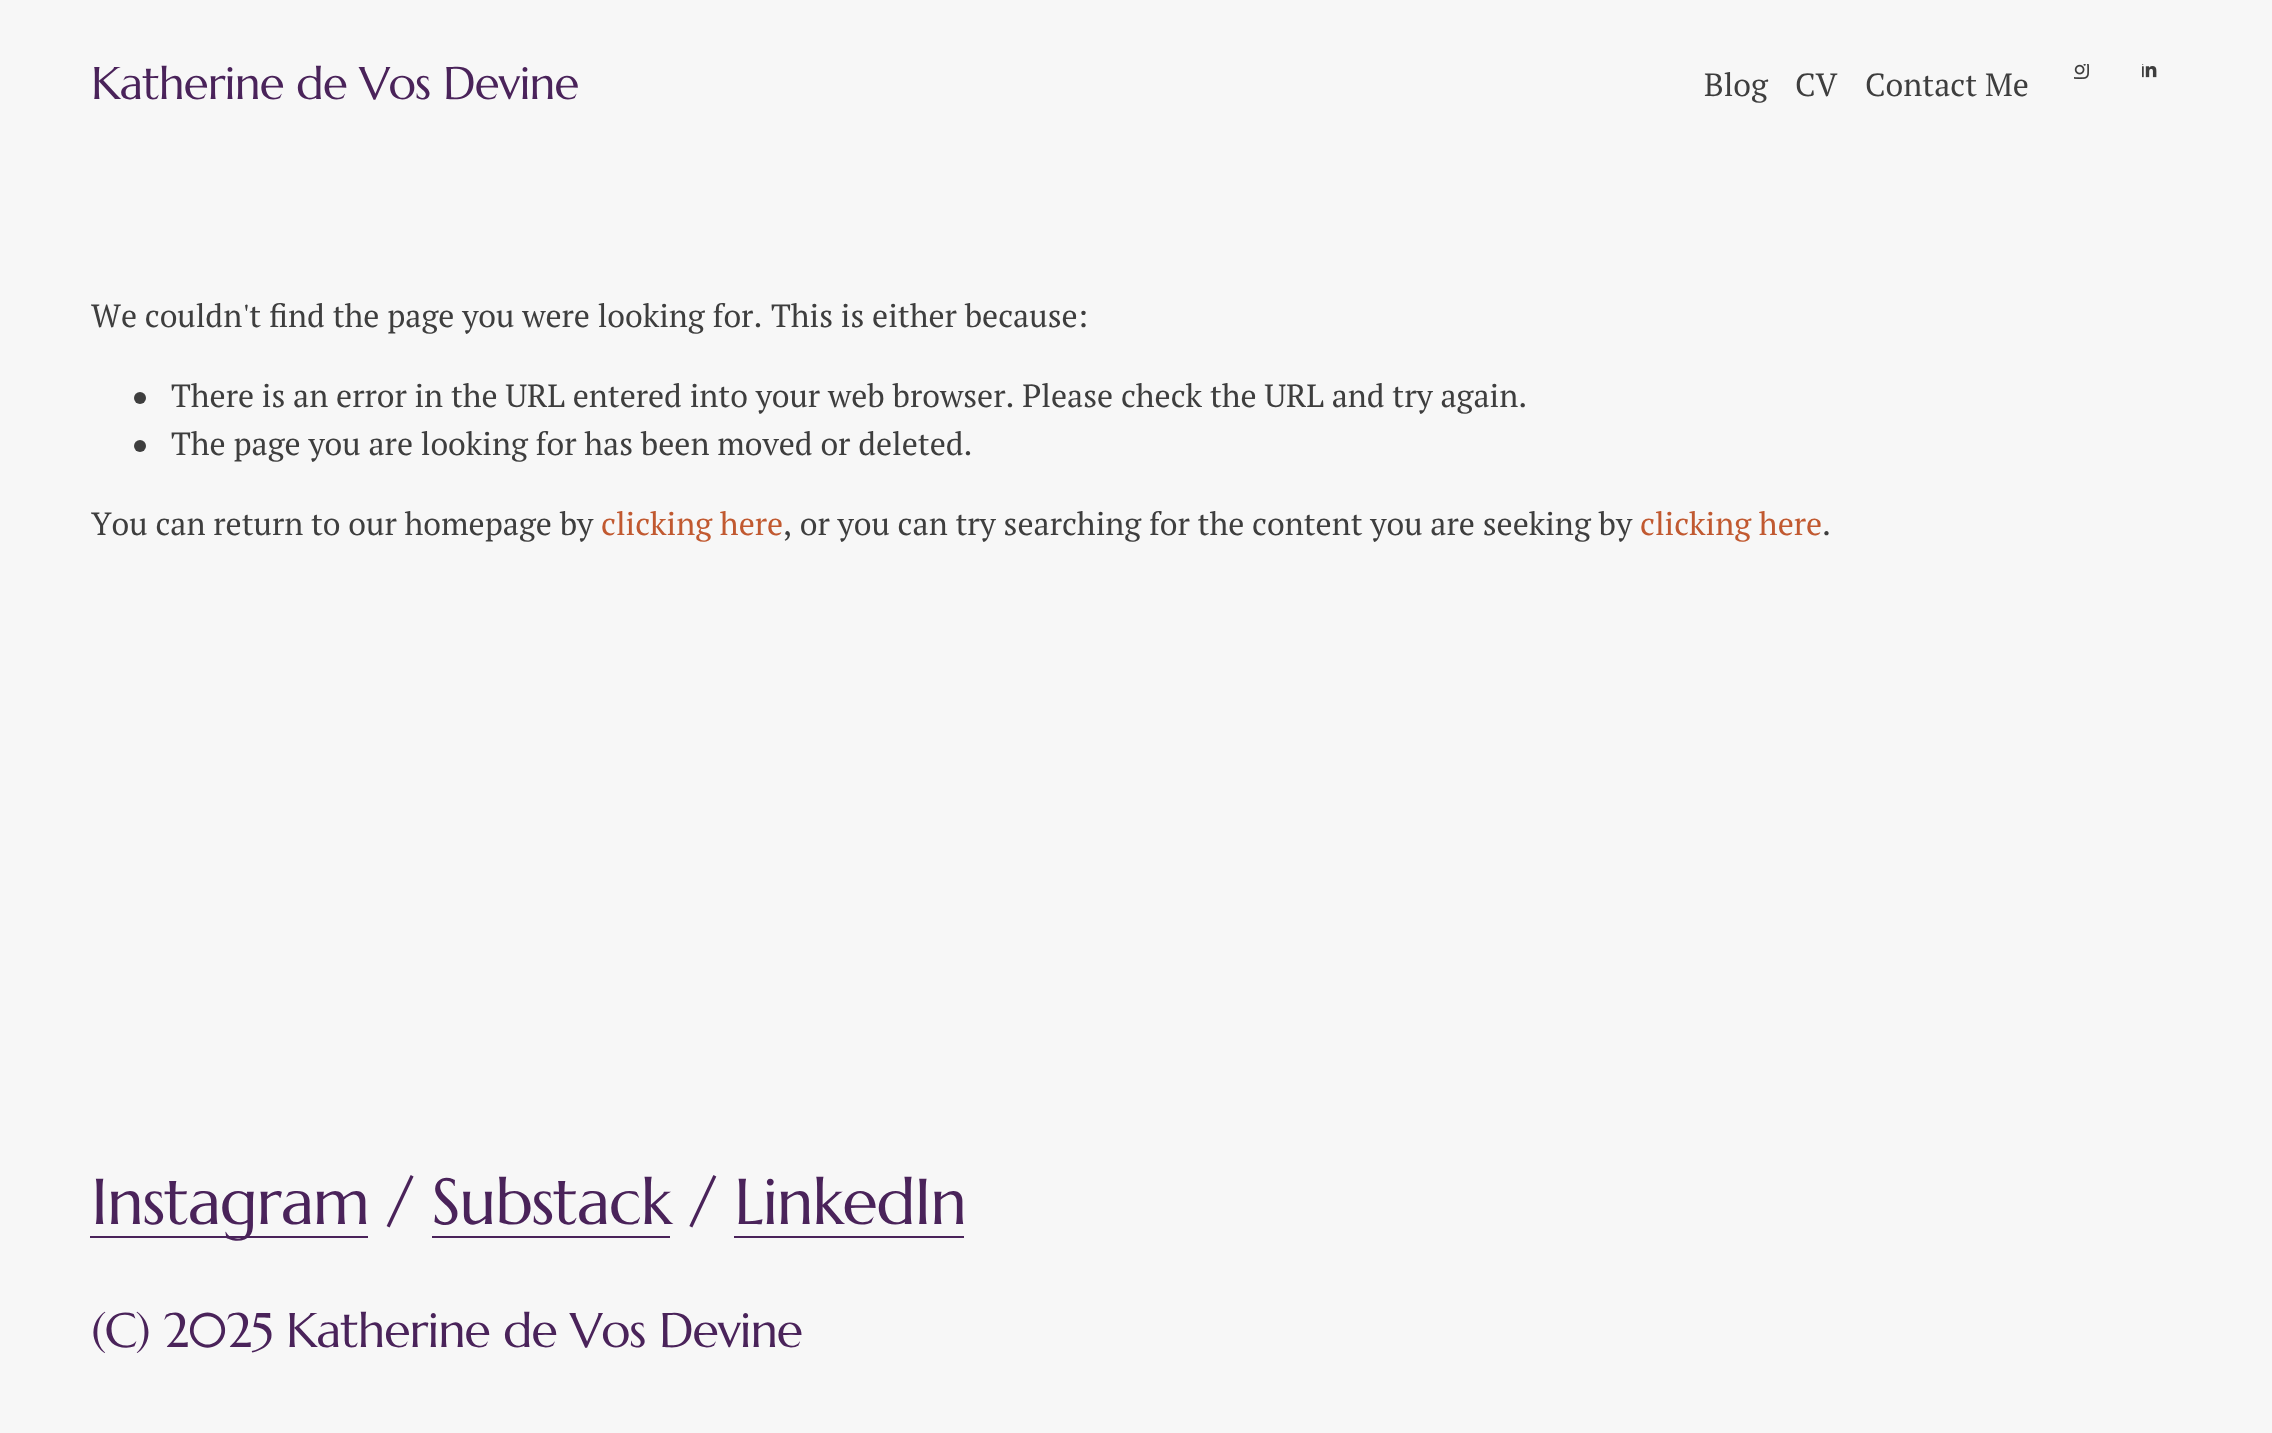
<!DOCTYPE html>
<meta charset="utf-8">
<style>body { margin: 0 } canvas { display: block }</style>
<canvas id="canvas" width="2272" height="1433"></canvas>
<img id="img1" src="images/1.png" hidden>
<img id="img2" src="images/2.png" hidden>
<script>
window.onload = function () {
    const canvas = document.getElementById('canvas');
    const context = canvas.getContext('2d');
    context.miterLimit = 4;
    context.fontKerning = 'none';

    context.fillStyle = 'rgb(247, 247, 247)';
    context.fillRect(0, 0, 2272, 1433);
    context.drawImage(document.getElementById('img1'), 2074, 64, 15, 15);
    context.drawImage(document.getElementById('img2'), 2142, 64, 15, 14);
    context.fillStyle = 'rgb(62, 62, 62)';
    context.beginPath();
    context.arc(140, 398, 6, 0, 2 * Math.PI);
    context.fill();
    context.beginPath();
    context.arc(140, 446, 6, 0, 2 * Math.PI);
    context.fill();
    context.fillStyle = 'rgb(74, 35, 90)';
    context.fillRect(90, 1236, 278, 2);
    context.fillRect(432, 1236, 238, 2);
    context.fillRect(734, 1236, 230, 2);
    context.letterSpacing = '-0.9px';
    context.font = '45.6px Marcellus';
    context.fillText('Katherine de Vos Devine', 91, 99);
    context.letterSpacing = '0px';
    context.font = '32px PT Serif';
    context.fillStyle = 'rgb(62, 62, 62)';
    context.fillText('Blog', 1704, 96);
    context.fillText('CV', 1795, 96);
    context.fillText('Contact Me', 1865, 96);
    context.fillText('We couldn\'t find the page you were looking for.', 91, 327);
    context.fillText('This is either because:', 771, 327);
    context.fillText('There is an error in the URL entered into your web browser. Please check the URL and try again.', 171, 407);
    context.fillText('The page you are looking for has been moved or deleted.', 171, 455);
    context.fillText('You can return to our homepage by', 91, 535);
    context.fillStyle = 'rgb(193, 89, 48)';
    context.fillText('clicking here', 601, 535);
    context.fillStyle = 'rgb(62, 62, 62)';
    context.fillText(', or you can try searching for the content you are seeking by', 783, 535);
    context.fillStyle = 'rgb(193, 89, 48)';
    context.fillText('clicking here', 1640, 535);
    context.fillStyle = 'rgb(62, 62, 62)';
    context.fillText('.', 1822, 535);
    context.letterSpacing = '-1.25px';
    context.font = '64.75px Marcellus';
    context.fillStyle = 'rgb(74, 35, 90)';
    context.fillText('Instagram', 91, 1224);
    context.fillText('/ Substack / LinkedIn', 386, 1224);
    context.letterSpacing = '-1px';
    context.font = '48.4px Marcellus';
    context.fillText('(C) 2025 Katherine de Vos Devine', 91, 1347);
};
</script>
